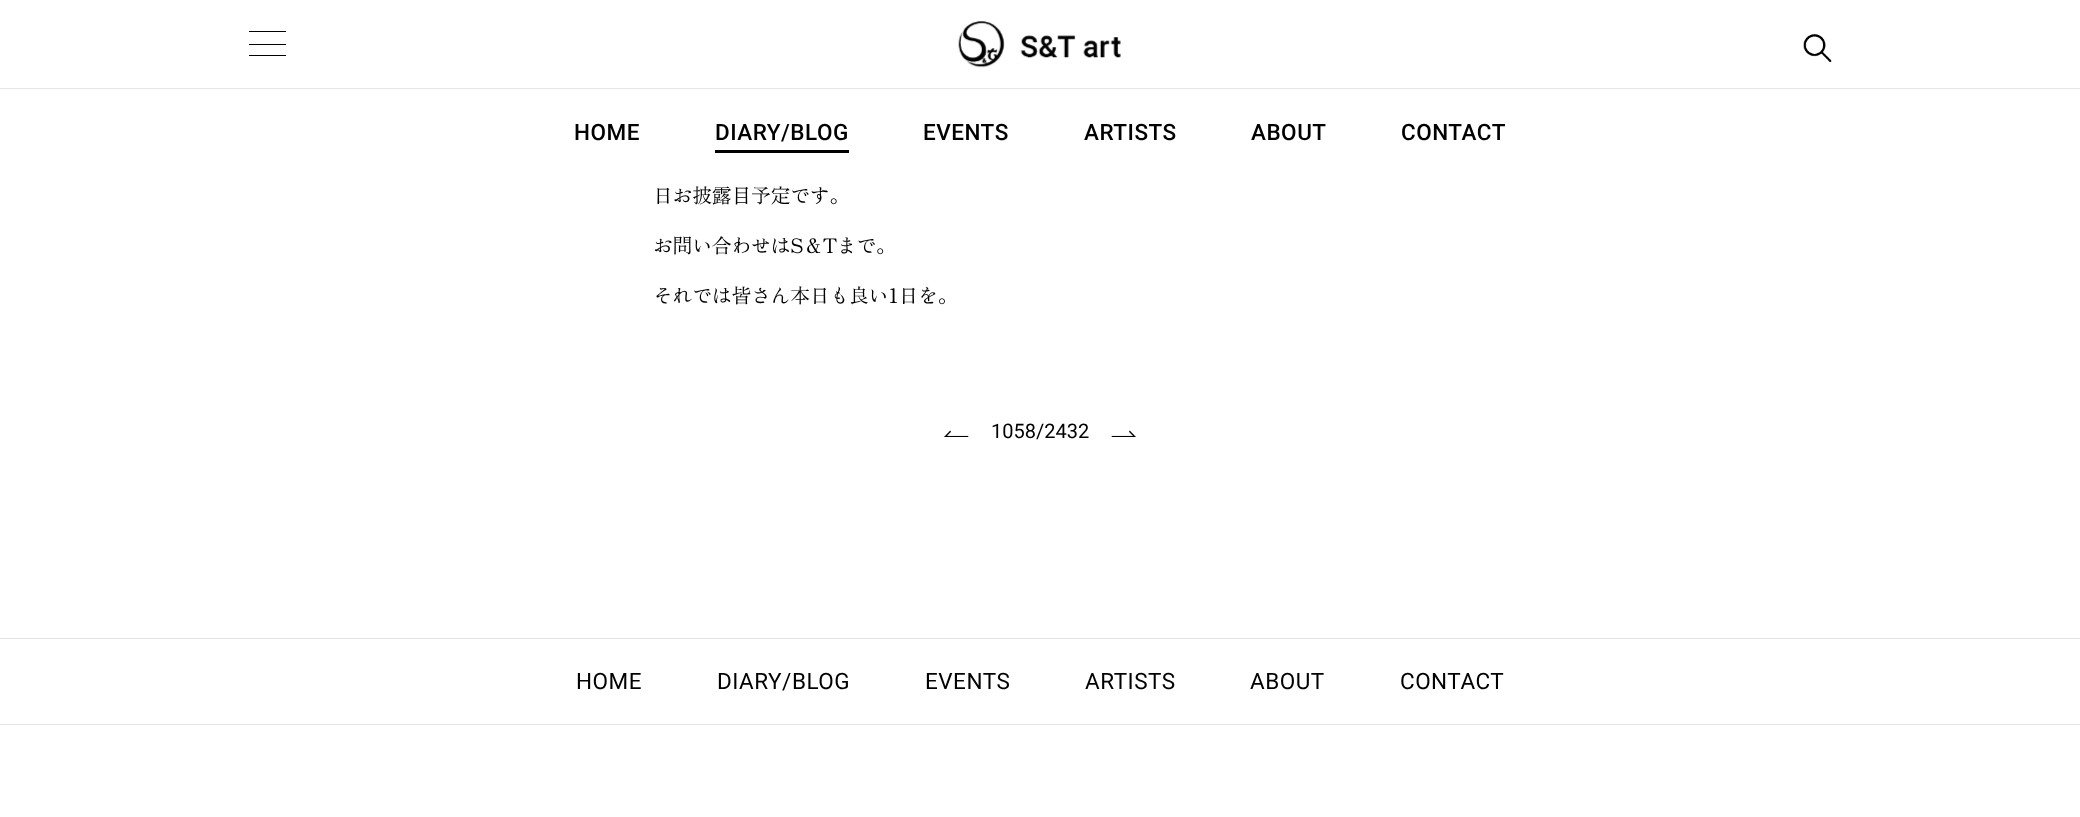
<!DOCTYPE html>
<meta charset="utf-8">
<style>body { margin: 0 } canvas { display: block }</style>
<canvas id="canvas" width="2080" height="817"></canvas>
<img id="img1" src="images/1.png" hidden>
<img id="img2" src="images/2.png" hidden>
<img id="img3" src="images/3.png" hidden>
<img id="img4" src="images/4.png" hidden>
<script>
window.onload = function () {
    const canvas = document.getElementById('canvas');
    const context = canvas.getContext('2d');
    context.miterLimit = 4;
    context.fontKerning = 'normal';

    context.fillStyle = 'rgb(255, 255, 255)';
    context.fillRect(0, 0, 2080, 817);
    context.fillStyle = 'rgb(229, 229, 229)';
    context.fillRect(0, 88, 2080, 1);
    context.fillStyle = 'rgb(0, 0, 0)';
    context.fillRect(249, 31, 37, 1);
    context.fillRect(249, 44, 37, 1);
    context.fillRect(249, 55, 37, 1);
    context.drawImage(document.getElementById('img1'), 958, 21, 163, 47);
    context.drawImage(document.getElementById('img2'), 1803, 33, 29, 30);
    context.fillRect(715, 150, 134, 3);
    context.drawImage(document.getElementById('img3'), 943, 430, 26, 7);
    context.drawImage(document.getElementById('img4'), 1111, 430, 26, 7);
    context.fillStyle = 'rgb(229, 229, 229)';
    context.fillRect(0, 638, 2080, 1);
    context.fillRect(0, 724, 2080, 1);
    context.letterSpacing = '0.5px';
    context.font = '500 22.5px Roboto';
    context.fillStyle = 'rgb(0, 0, 0)';
    context.fillText('HOME', 574, 140);
    context.fillText('DIARY/BLOG', 715, 140);
    context.fillText('EVENTS', 923, 140);
    context.fillText('ARTISTS', 1084, 140);
    context.fillText('ABOUT', 1251, 140);
    context.fillText('CONTACT', 1401, 140);
    context.letterSpacing = '-0.4px';
    context.font = '20px Zen Old Mincho';
    context.fillText('日お披露目予定です。', 653, 203);
    context.fillText('お問い合わせはS＆Tまで。', 653, 253);
    context.fillText('それでは皆さん本日も良い1日を。', 653, 303);
    context.letterSpacing = '0px';
    context.font = '20px Roboto';
    context.fillText('1058/2432', 991, 438);
    context.letterSpacing = '0.5px';
    context.font = '22.5px Roboto';
    context.fillText('HOME', 576, 689);
    context.fillText('DIARY/BLOG', 717, 689);
    context.fillText('EVENTS', 925, 689);
    context.fillText('ARTISTS', 1085, 689);
    context.fillText('ABOUT', 1250, 689);
    context.fillText('CONTACT', 1400, 689);
};
</script>
